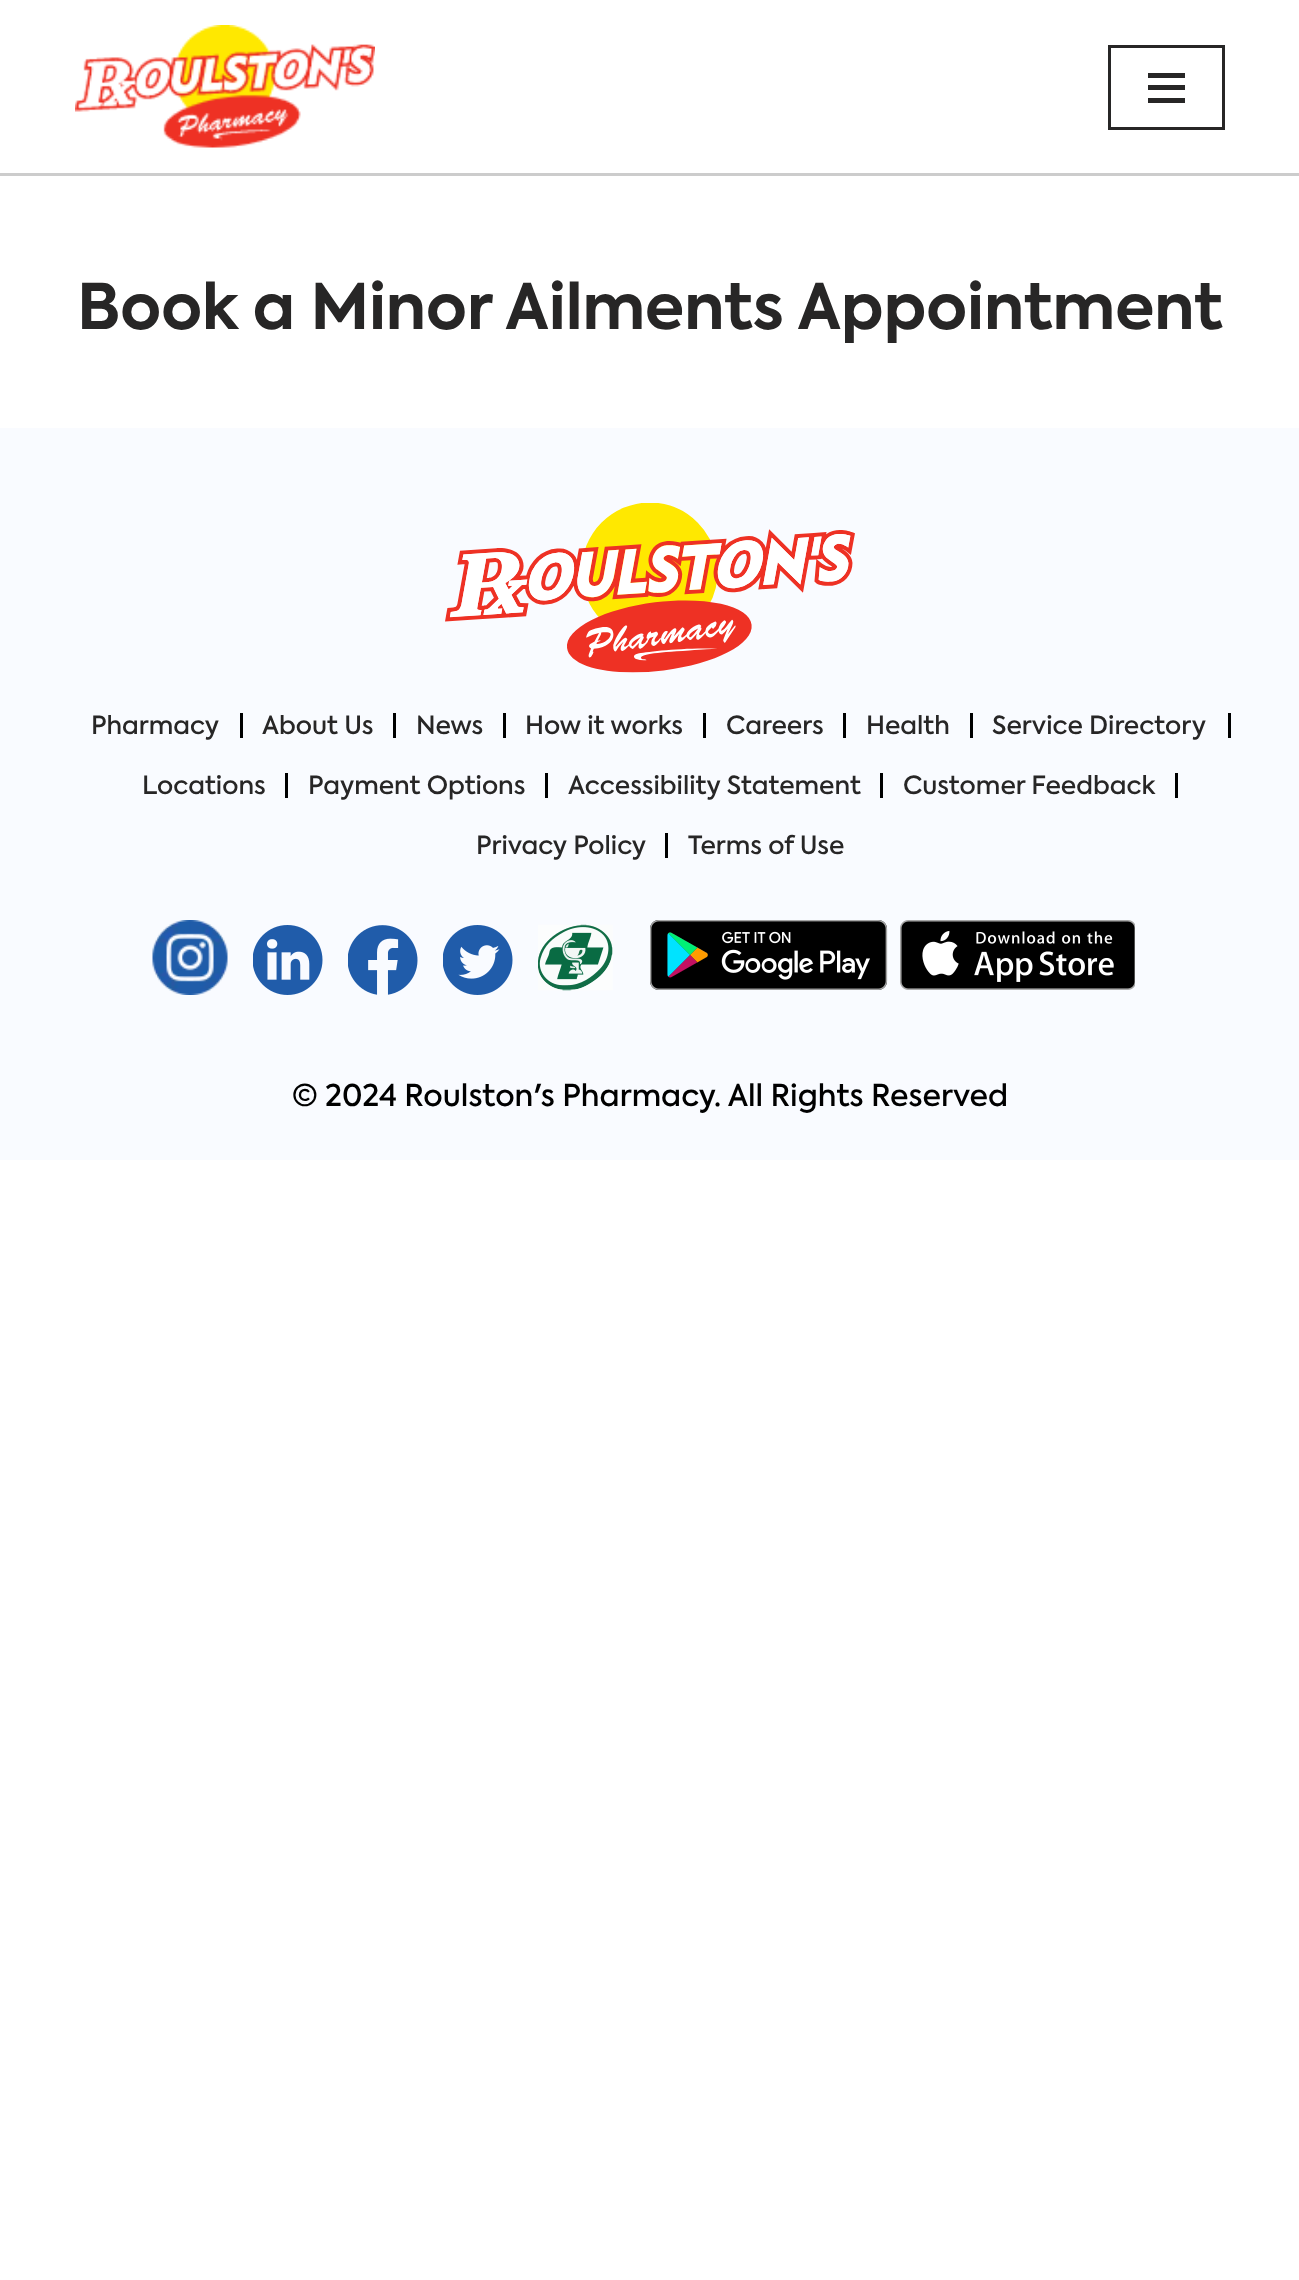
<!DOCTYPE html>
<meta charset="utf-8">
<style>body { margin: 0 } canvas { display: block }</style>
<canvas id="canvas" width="1299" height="2280"></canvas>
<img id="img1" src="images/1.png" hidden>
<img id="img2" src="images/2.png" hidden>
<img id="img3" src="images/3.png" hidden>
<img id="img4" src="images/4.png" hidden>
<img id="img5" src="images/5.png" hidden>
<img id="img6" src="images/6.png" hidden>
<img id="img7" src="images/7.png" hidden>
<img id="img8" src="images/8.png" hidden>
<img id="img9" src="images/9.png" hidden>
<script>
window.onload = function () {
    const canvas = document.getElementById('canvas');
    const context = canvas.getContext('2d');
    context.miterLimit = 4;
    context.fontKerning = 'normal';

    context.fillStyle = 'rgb(255, 255, 255)';
    context.fillRect(0, 0, 1299, 2280);
    context.fillStyle = 'rgb(204, 204, 204)';
    context.fillRect(0, 173, 1299, 3);
    context.drawImage(document.getElementById('img1'), 75, 25, 300, 123);
    context.strokeStyle = 'rgb(39, 38, 38)';
    context.lineWidth = 3;
    context.strokeRect(1109.5, 46.5, 114, 82);
    context.fillStyle = 'rgb(39, 38, 38)';
    context.fillRect(1148, 73, 37, 5);
    context.fillRect(1148, 85, 37, 5);
    context.fillRect(1148, 98, 37, 5);
    context.fillStyle = 'rgb(249, 251, 255)';
    context.fillRect(0, 428, 1299, 732);
    context.drawImage(document.getElementById('img2'), 445, 503, 410, 170);
    context.fillStyle = 'rgb(0, 0, 0)';
    context.fillRect(240, 713, 3, 25);
    context.fillRect(393, 713, 3, 25);
    context.fillRect(503, 713, 3, 25);
    context.fillRect(703, 713, 3, 25);
    context.fillRect(843, 713, 3, 25);
    context.fillRect(970, 713, 3, 25);
    context.fillRect(1228, 713, 3, 25);
    context.fillRect(285, 773, 3, 25);
    context.fillRect(545, 773, 3, 25);
    context.fillRect(880, 773, 3, 25);
    context.fillRect(1175, 773, 3, 25);
    context.fillRect(665, 833, 3, 25);
    context.drawImage(document.getElementById('img3'), 152, 920, 76, 75);
    context.drawImage(document.getElementById('img4'), 253, 925, 70, 70);
    context.drawImage(document.getElementById('img5'), 348, 925, 70, 70);
    context.drawImage(document.getElementById('img6'), 443, 925, 70, 70);
    context.drawImage(document.getElementById('img7'), 538, 924, 75, 67);
    context.drawImage(document.getElementById('img8'), 650, 920, 238, 70);
    context.drawImage(document.getElementById('img9'), 900, 920, 235, 70);
    context.font = 'bold 62.5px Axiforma';
    context.fillStyle = 'rgb(39, 38, 38)';
    context.fillText('Book a Minor Ailments Appointment', 77, 329);
    context.font = '500 25px Axiforma';
    context.fillText('Pharmacy', 91, 734);
    context.fillText('About Us', 262, 734);
    context.fillText('News', 416, 734);
    context.fillText('How it works', 525, 734);
    context.fillText('Careers', 726, 734);
    context.fillText('Health', 866, 734);
    context.fillText('Service Directory', 992, 734);
    context.fillText('Locations', 142, 794);
    context.fillText('Payment Options', 308, 794);
    context.fillText('Accessibility Statement', 568, 794);
    context.fillText('Customer Feedback', 903, 794);
    context.fillText('Privacy Policy', 476, 854);
    context.fillText('Terms of Use', 688, 854);
    context.font = '500 30px Axiforma';
    context.fillStyle = 'rgb(0, 0, 0)';
    context.fillText('© 2024 Roulston\'s Pharmacy. All Rights Reserved', 292, 1106);
};
</script>
